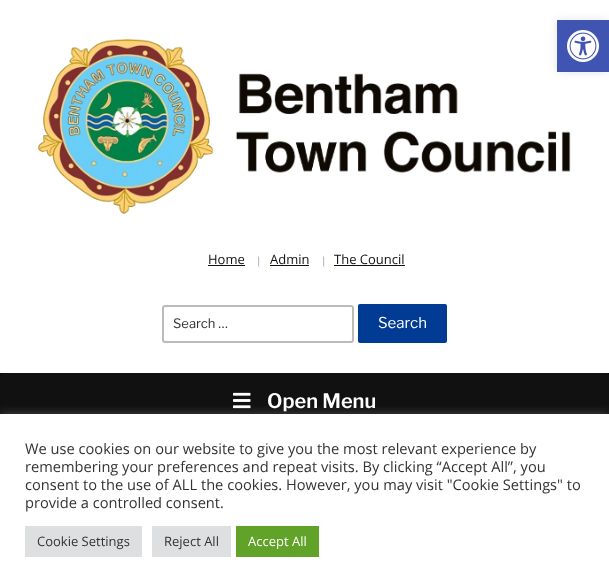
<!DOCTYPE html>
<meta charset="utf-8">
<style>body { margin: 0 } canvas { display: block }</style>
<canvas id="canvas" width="609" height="587"></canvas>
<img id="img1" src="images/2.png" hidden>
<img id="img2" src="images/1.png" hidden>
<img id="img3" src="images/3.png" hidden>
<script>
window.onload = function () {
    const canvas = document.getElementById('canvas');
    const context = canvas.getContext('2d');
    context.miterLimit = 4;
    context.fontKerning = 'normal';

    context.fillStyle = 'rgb(255, 255, 255)';
    context.fillRect(0, 0, 609, 587);
    context.drawImage(document.getElementById('img1'), 38, 38, 533, 176);
    context.fillStyle = 'rgba(0, 0, 0, 0.1)';
    context.filter = 'blur(5px)';
    context.beginPath();
    context.rect(557, 20, 52, 52);
    context.fill();
    context.filter = 'none';
    context.fillStyle = 'rgb(64, 84, 178)';
    context.fillRect(557, 20, 52, 52);
    context.drawImage(document.getElementById('img2'), 567, 30, 32, 32);
    context.fillStyle = 'rgb(17, 17, 17)';
    context.fillRect(208, 265, 37, 1);
    context.fillRect(270, 265, 39, 1);
    context.fillRect(334, 265, 71, 1);
    context.beginPath();
    context.roundRect(163, 306, 190, 36, 2);
    context.strokeStyle = 'rgb(187, 187, 187)';
    context.lineWidth = 2;
    context.stroke();
    context.fillStyle = 'rgb(1, 59, 147)';
    context.beginPath();
    context.roundRect(358, 304, 89, 39, 2);
    context.fill();
    context.fillStyle = 'rgb(2, 2, 2)';
    context.fillRect(0, 373, 609, 2);
    context.fillStyle = 'rgb(17, 17, 17)';
    context.beginPath();
    context.roundRect(0, 373, 609, 56, 2);
    context.fill();
    context.drawImage(document.getElementById('img3'), 233, 392, 18, 17);
    context.fillStyle = 'rgba(172, 171, 171, 0.3)';
    context.filter = 'blur(5px)';
    context.beginPath();
    context.rect(0, 413, 609, 173);
    context.fill();
    context.filter = 'none';
    context.fillStyle = 'rgb(255, 255, 255)';
    context.fillRect(0, 414, 609, 173);
    context.fillStyle = 'rgb(222, 223, 224)';
    context.fillRect(25, 526, 117, 31);
    context.fillRect(152, 526, 79, 31);
    context.fillStyle = 'rgb(97, 162, 41)';
    context.fillRect(236, 526, 83, 31);
    context.font = '13px Open Sans';
    context.fillStyle = 'rgb(17, 17, 17)';
    context.fillText('Home', 208, 264);
    context.font = '10px Open Sans';
    context.fillStyle = 'rgb(136, 152, 175)';
    context.fillText('|', 256, 264);
    context.font = '13px Open Sans';
    context.fillStyle = 'rgb(17, 17, 17)';
    context.fillText('Admin', 270, 264);
    context.font = '10px Open Sans';
    context.fillStyle = 'rgb(136, 152, 175)';
    context.fillText('|', 321, 264);
    context.font = '13px Open Sans';
    context.fillStyle = 'rgb(17, 17, 17)';
    context.fillText('The Council', 334, 264);
    context.font = '13px Libre Franklin';
    context.fillStyle = 'rgb(51, 51, 51)';
    context.fillText('Search …', 173, 328);
    context.font = '15px Libre Franklin';
    context.fillStyle = 'rgb(255, 255, 255)';
    context.fillText('Search', 378, 328);
    context.font = '600 20px Libre Franklin';
    context.fillText('Open Menu', 267, 408);
    context.font = '14.65px Open Sans';
    context.fillStyle = 'rgb(51, 51, 51)';
    context.fillText('We use cookies on our website to give you the most relevant experience by', 25, 454);
    context.fillText('remembering your preferences and repeat visits. By clicking “Accept All”, you', 25, 472);
    context.fillText('consent to the use of ALL the cookies. However, you may visit "Cookie Settings" to', 25, 490);
    context.fillText('provide a controlled consent.', 25, 508);
    context.font = '13px Open Sans';
    context.fillText('Cookie Settings', 37, 546);
    context.fillText('Reject All', 164, 546);
    context.fillStyle = 'rgb(255, 255, 255)';
    context.fillText('Accept All', 248, 546);
};
</script>
